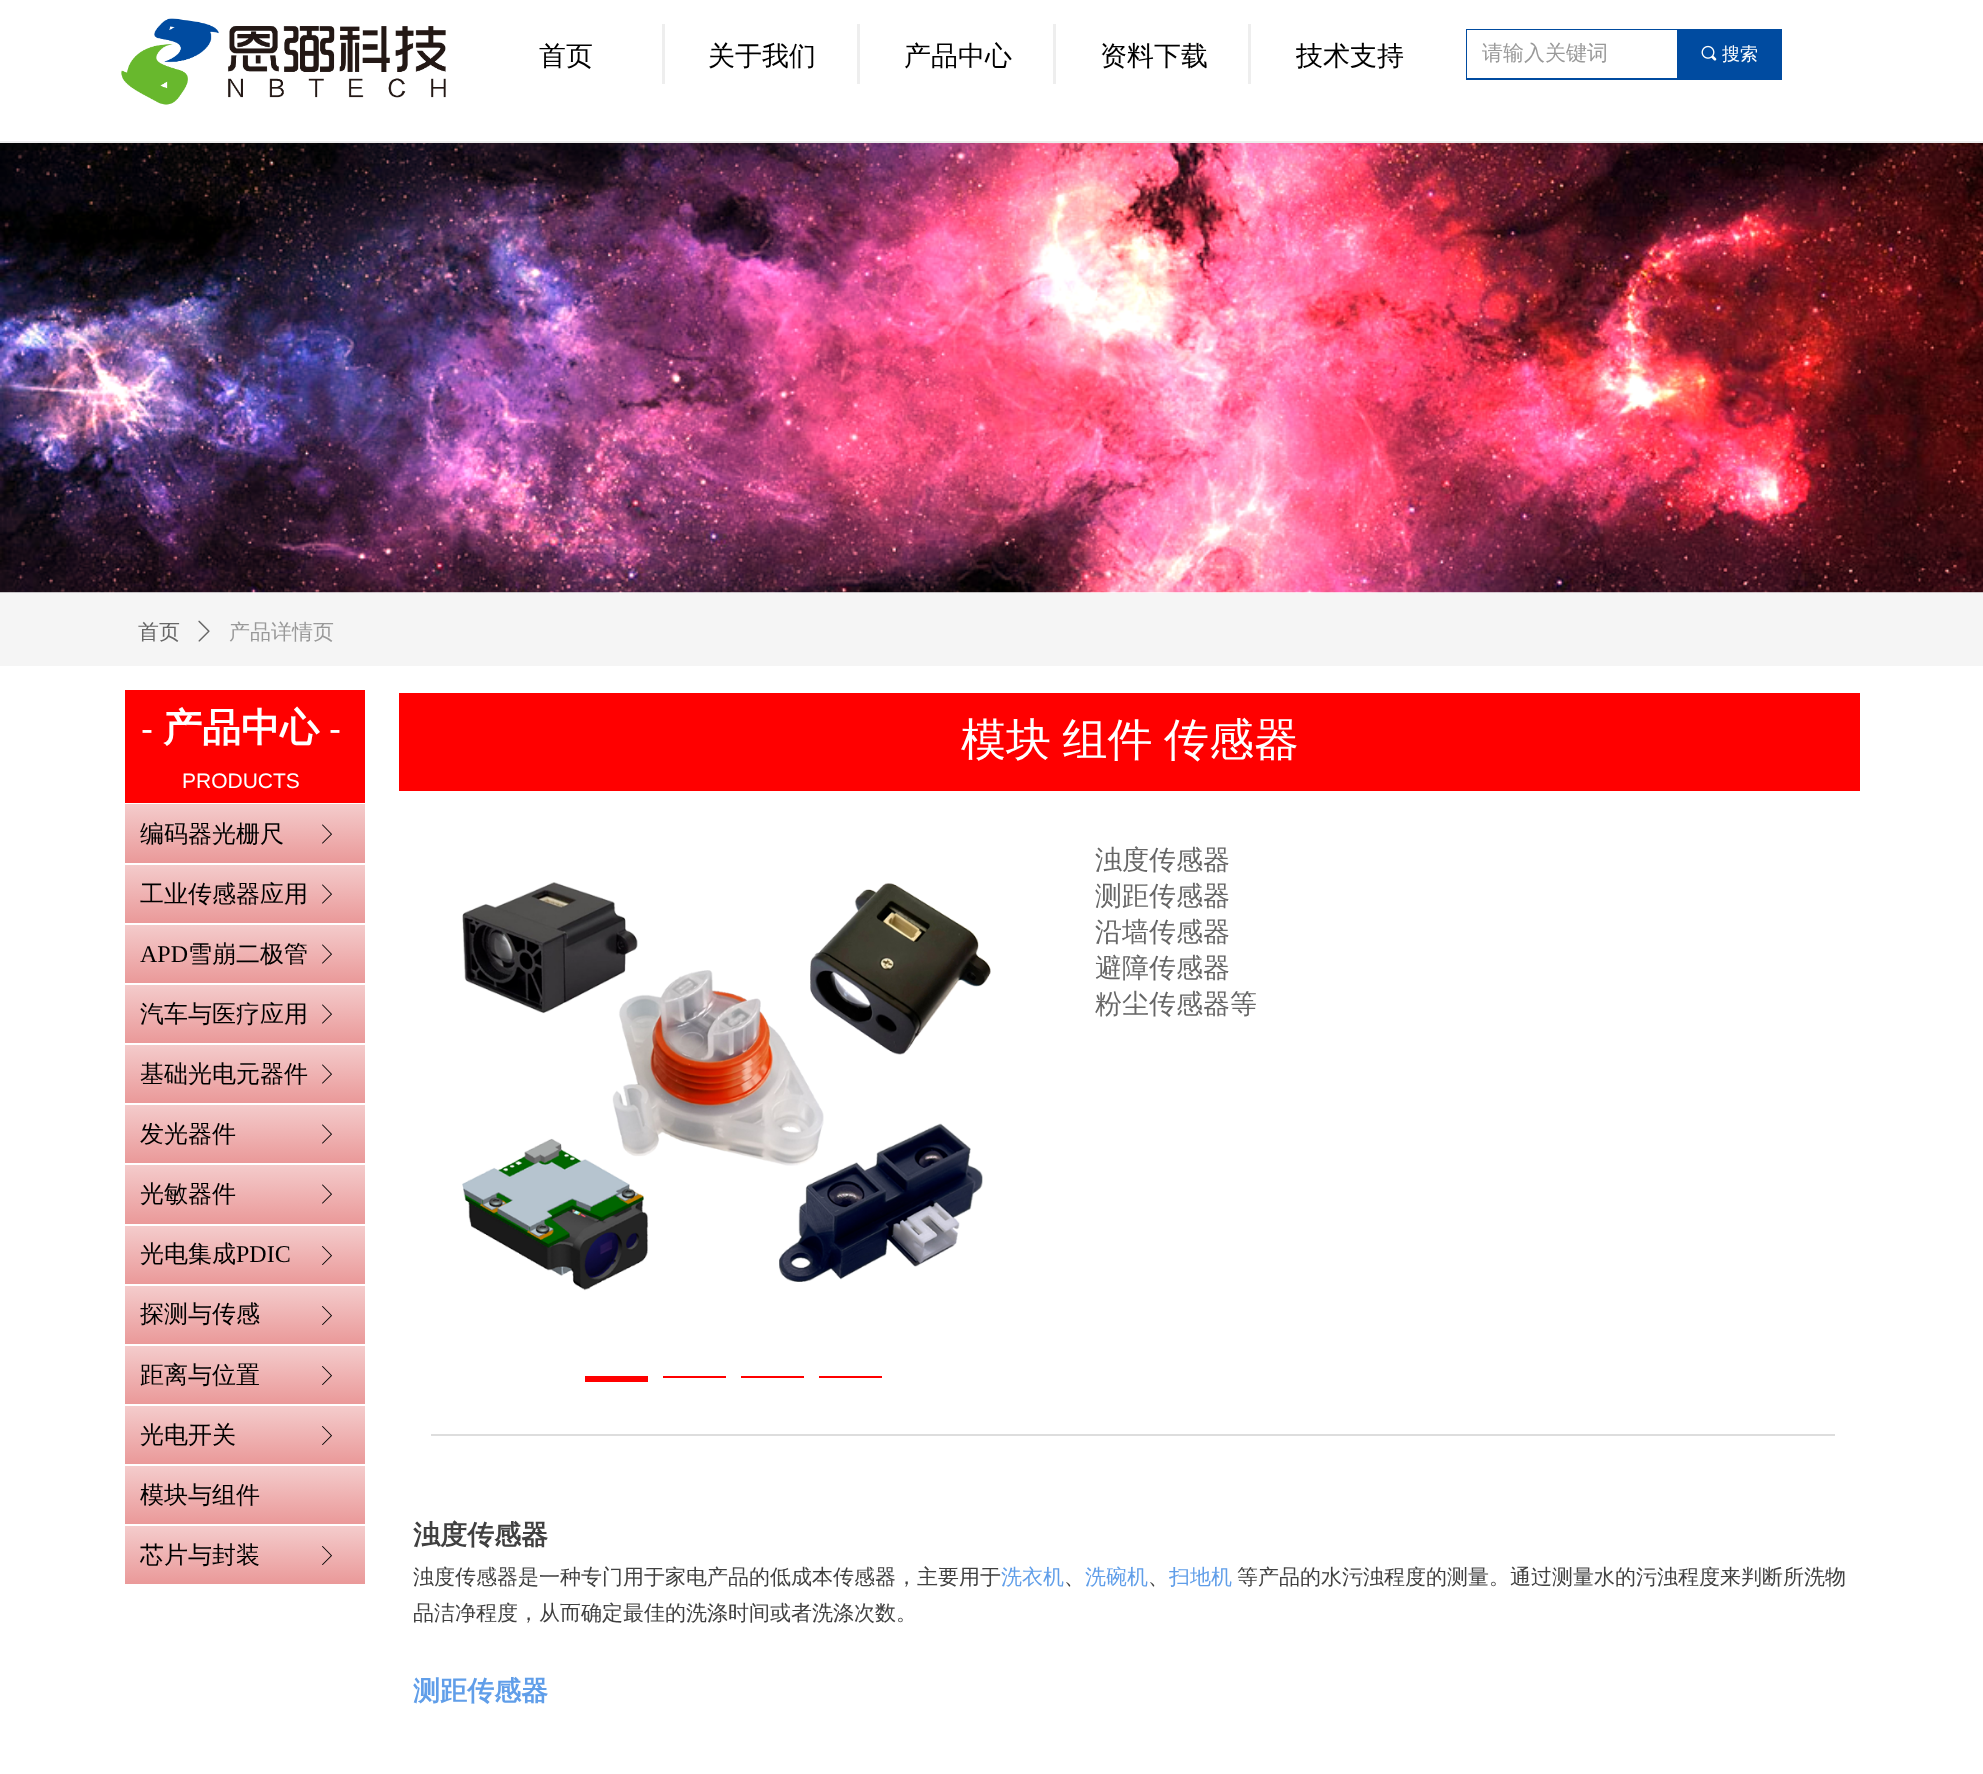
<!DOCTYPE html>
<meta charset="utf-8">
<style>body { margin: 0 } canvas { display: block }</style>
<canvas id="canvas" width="1983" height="1774"></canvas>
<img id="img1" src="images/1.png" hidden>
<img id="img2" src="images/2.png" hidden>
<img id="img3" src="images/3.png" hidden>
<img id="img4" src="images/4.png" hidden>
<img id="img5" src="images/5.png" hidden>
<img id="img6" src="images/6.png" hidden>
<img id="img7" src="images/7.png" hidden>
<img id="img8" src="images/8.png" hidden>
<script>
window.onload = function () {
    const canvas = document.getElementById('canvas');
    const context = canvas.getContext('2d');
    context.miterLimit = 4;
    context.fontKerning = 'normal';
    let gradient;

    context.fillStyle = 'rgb(255, 255, 255)';
    context.fillRect(0, 0, 1983, 1774);
    context.drawImage(document.getElementById('img1'), 121, 18, 325, 87);
    context.fillStyle = 'rgb(238, 238, 238)';
    context.fillRect(662, 24, 3, 60);
    context.fillRect(857, 24, 3, 60);
    context.fillRect(1053, 24, 3, 60);
    context.fillRect(1248, 24, 3, 60);
    context.strokeStyle = 'rgb(0, 75, 160)';
    context.lineWidth = 2;
    context.strokeRect(1467, 30, 314, 49);
    context.fillStyle = 'rgb(255, 255, 255)';
    context.fillRect(1467, 30, 210, 48);
    context.fillStyle = 'rgb(0, 75, 160)';
    context.fillRect(1677, 31, 103, 47);
    context.drawImage(document.getElementById('img2'), 1701, 45, 16, 16);
    context.fillStyle = 'rgb(238, 238, 238)';
    context.fillRect(0, 141, 1983, 2);
    context.drawImage(document.getElementById('img3'), 0, 143, 1983, 450);
    context.fillStyle = 'rgb(245, 245, 245)';
    context.fillRect(0, 593, 1983, 73);
    context.drawImage(document.getElementById('img4'), 198, 620, 12, 22);
    context.fillStyle = 'rgb(255, 0, 0)';
    context.fillRect(125, 690, 240, 113);
    gradient = context.createLinearGradient(245, 804, 245, 863);
    gradient.addColorStop(0, 'rgb(244, 204, 204)');
    gradient.addColorStop(1, 'rgb(234, 153, 153)');
    context.fillStyle = gradient;
    context.fillRect(125, 804, 240, 59);
    context.drawImage(document.getElementById('img5'), 322, 824, 10, 20);
    gradient = context.createLinearGradient(245, 864, 245, 923);
    gradient.addColorStop(0, 'rgb(244, 204, 204)');
    gradient.addColorStop(1, 'rgb(234, 153, 153)');
    context.fillStyle = gradient;
    context.fillRect(125, 865, 240, 58);
    context.drawImage(document.getElementById('img5'), 322, 884, 10, 20);
    gradient = context.createLinearGradient(245, 924, 245, 983);
    gradient.addColorStop(0, 'rgb(244, 204, 204)');
    gradient.addColorStop(1, 'rgb(234, 153, 153)');
    context.fillStyle = gradient;
    context.fillRect(125, 925, 240, 58);
    context.drawImage(document.getElementById('img5'), 322, 944, 10, 20);
    gradient = context.createLinearGradient(245, 984, 245, 1043);
    gradient.addColorStop(0, 'rgb(244, 204, 204)');
    gradient.addColorStop(1, 'rgb(234, 153, 153)');
    context.fillStyle = gradient;
    context.fillRect(125, 985, 240, 58);
    context.drawImage(document.getElementById('img5'), 322, 1004, 10, 20);
    gradient = context.createLinearGradient(245, 1044, 245, 1103);
    gradient.addColorStop(0, 'rgb(244, 204, 204)');
    gradient.addColorStop(1, 'rgb(234, 153, 153)');
    context.fillStyle = gradient;
    context.fillRect(125, 1045, 240, 58);
    context.drawImage(document.getElementById('img5'), 322, 1064, 10, 20);
    gradient = context.createLinearGradient(245, 1104, 245, 1163);
    gradient.addColorStop(0, 'rgb(244, 204, 204)');
    gradient.addColorStop(1, 'rgb(234, 153, 153)');
    context.fillStyle = gradient;
    context.fillRect(125, 1105, 240, 58);
    context.drawImage(document.getElementById('img5'), 322, 1124, 10, 20);
    gradient = context.createLinearGradient(245, 1164, 245, 1224);
    gradient.addColorStop(0, 'rgb(244, 204, 204)');
    gradient.addColorStop(1, 'rgb(234, 153, 153)');
    context.fillStyle = gradient;
    context.fillRect(125, 1165, 240, 59);
    context.drawImage(document.getElementById('img6'), 322, 1184, 10, 20);
    gradient = context.createLinearGradient(245, 1226, 245, 1284);
    gradient.addColorStop(0, 'rgb(244, 204, 204)');
    gradient.addColorStop(1, 'rgb(234, 153, 153)');
    context.fillStyle = gradient;
    context.fillRect(125, 1226, 240, 58);
    context.drawImage(document.getElementById('img7'), 322, 1246, 10, 19);
    gradient = context.createLinearGradient(245, 1286, 245, 1344);
    gradient.addColorStop(0, 'rgb(244, 204, 204)');
    gradient.addColorStop(1, 'rgb(234, 153, 153)');
    context.fillStyle = gradient;
    context.fillRect(125, 1286, 240, 58);
    context.drawImage(document.getElementById('img7'), 322, 1306, 10, 19);
    gradient = context.createLinearGradient(245, 1346, 245, 1404);
    gradient.addColorStop(0, 'rgb(244, 204, 204)');
    gradient.addColorStop(1, 'rgb(234, 153, 153)');
    context.fillStyle = gradient;
    context.fillRect(125, 1346, 240, 58);
    context.drawImage(document.getElementById('img7'), 322, 1366, 10, 19);
    gradient = context.createLinearGradient(245, 1406, 245, 1464);
    gradient.addColorStop(0, 'rgb(244, 204, 204)');
    gradient.addColorStop(1, 'rgb(234, 153, 153)');
    context.fillStyle = gradient;
    context.fillRect(125, 1406, 240, 58);
    context.drawImage(document.getElementById('img7'), 322, 1426, 10, 19);
    gradient = context.createLinearGradient(245, 1466, 245, 1524);
    gradient.addColorStop(0, 'rgb(244, 204, 204)');
    gradient.addColorStop(1, 'rgb(234, 153, 153)');
    context.fillStyle = gradient;
    context.fillRect(125, 1466, 240, 58);
    gradient = context.createLinearGradient(245, 1526, 245, 1584);
    gradient.addColorStop(0, 'rgb(244, 204, 204)');
    gradient.addColorStop(1, 'rgb(234, 153, 153)');
    context.fillStyle = gradient;
    context.fillRect(125, 1526, 240, 58);
    context.drawImage(document.getElementById('img7'), 322, 1546, 10, 19);
    context.fillStyle = 'rgb(255, 0, 0)';
    context.fillRect(399, 693, 1461, 98);
    context.drawImage(document.getElementById('img8'), 462, 882, 529, 409);
    context.fillRect(585, 1376, 63, 6);
    context.fillRect(663, 1376, 63, 2);
    context.fillRect(741, 1376, 63, 2);
    context.fillRect(819, 1376, 63, 2);
    context.fillStyle = 'rgb(221, 221, 221)';
    context.fillRect(431, 1434, 1404, 2);
    context.font = '500 27px WenQuanYi Zen Hei';
    context.fillStyle = 'rgb(0, 0, 0)';
    context.fillText('首页', 539, 65);
    context.fillText('关于我们', 708, 65);
    context.fillText('产品中心', 904, 65);
    context.fillText('资料下载', 1100, 65);
    context.fillText('技术支持', 1296, 65);
    context.font = '500 21px WenQuanYi Zen Hei';
    context.fillStyle = 'rgb(153, 153, 153)';
    context.fillText('请输入关键词', 1482, 60);
    context.font = '500 18px WenQuanYi Zen Hei';
    context.fillStyle = 'rgb(255, 255, 255)';
    context.fillText('搜索', 1722, 60);
    context.font = '500 21px WenQuanYi Zen Hei';
    context.fillStyle = 'rgb(102, 102, 102)';
    context.fillText('首页', 138, 639);
    context.fillStyle = 'rgb(153, 153, 153)';
    context.fillText('产品详情页', 229, 639);
    context.font = '36px Liberation Sans';
    context.fillStyle = 'rgb(255, 255, 255)';
    context.fillText('-', 141, 741);
    context.font = 'bold 39px WenQuanYi Zen Hei';
    context.fillText('产品中心', 163, 741);
    context.font = '36px Liberation Sans';
    context.fillText('-', 329, 741);
    context.font = '21px Liberation Sans';
    context.fillText('PRODUCTS', 182, 788);
    context.font = '500 24px WenQuanYi Zen Hei';
    context.fillStyle = 'rgb(0, 0, 0)';
    context.fillText('编码器光栅尺', 140, 842);
    context.fillText('工业传感器应用', 140, 902);
    context.font = '24px Liberation Serif';
    context.fillText('APD', 140, 962);
    context.font = '500 24px WenQuanYi Zen Hei';
    context.fillText('雪崩二极管', 188, 962);
    context.fillText('汽车与医疗应用', 140, 1022);
    context.fillText('基础光电元器件', 140, 1082);
    context.fillText('发光器件', 140, 1142);
    context.fillText('光敏器件', 140, 1202);
    context.fillText('光电集成', 140, 1262);
    context.font = '24px Liberation Serif';
    context.fillText('PDIC', 236, 1262);
    context.font = '500 24px WenQuanYi Zen Hei';
    context.fillText('探测与传感', 140, 1322);
    context.fillText('距离与位置', 140, 1383);
    context.fillText('光电开关', 140, 1443);
    context.fillText('模块与组件', 140, 1503);
    context.fillText('芯片与封装', 140, 1563);
    context.wordSpacing = '-2px';
    context.font = '500 45px WenQuanYi Zen Hei';
    context.fillStyle = 'rgb(255, 255, 255)';
    context.fillText('模块 组件 传感器', 961, 755);
    context.wordSpacing = '0px';
    context.font = '500 27px WenQuanYi Zen Hei';
    context.fillStyle = 'rgb(102, 102, 102)';
    context.fillText('浊度传感器', 1095, 869);
    context.fillText('测距传感器', 1095, 905);
    context.fillText('沿墙传感器', 1095, 941);
    context.fillText('避障传感器', 1095, 977);
    context.fillText('粉尘传感器等', 1095, 1013);
    context.font = 'bold 27px WenQuanYi Zen Hei';
    context.fillStyle = 'rgb(64, 64, 64)';
    context.fillText('浊度传感器', 413, 1544);
    context.font = '500 21px WenQuanYi Zen Hei';
    context.fillText('浊度传感器是一种专门用于家电产品的低成本传感器，主要用于', 413, 1584);
    context.fillStyle = 'rgb(96, 158, 233)';
    context.fillText('洗衣机', 1001, 1584);
    context.fillStyle = 'rgb(64, 64, 64)';
    context.fillText('、', 1064, 1584);
    context.fillStyle = 'rgb(96, 158, 233)';
    context.fillText('洗碗机', 1085, 1584);
    context.fillStyle = 'rgb(64, 64, 64)';
    context.fillText('、', 1148, 1584);
    context.fillStyle = 'rgb(96, 158, 233)';
    context.fillText('扫地机', 1169, 1584);
    context.fillStyle = 'rgb(64, 64, 64)';
    context.fillText('等产品的水污浊程度的测量。通过测量水的污浊程度来判断所洗物', 1237, 1584);
    context.fillText('品洁净程度，从而确定最佳的洗涤时间或者洗涤次数。', 413, 1620);
    context.font = 'bold 27px WenQuanYi Zen Hei';
    context.fillStyle = 'rgb(96, 158, 233)';
    context.fillText('测距传感器', 413, 1700);
};
</script>
